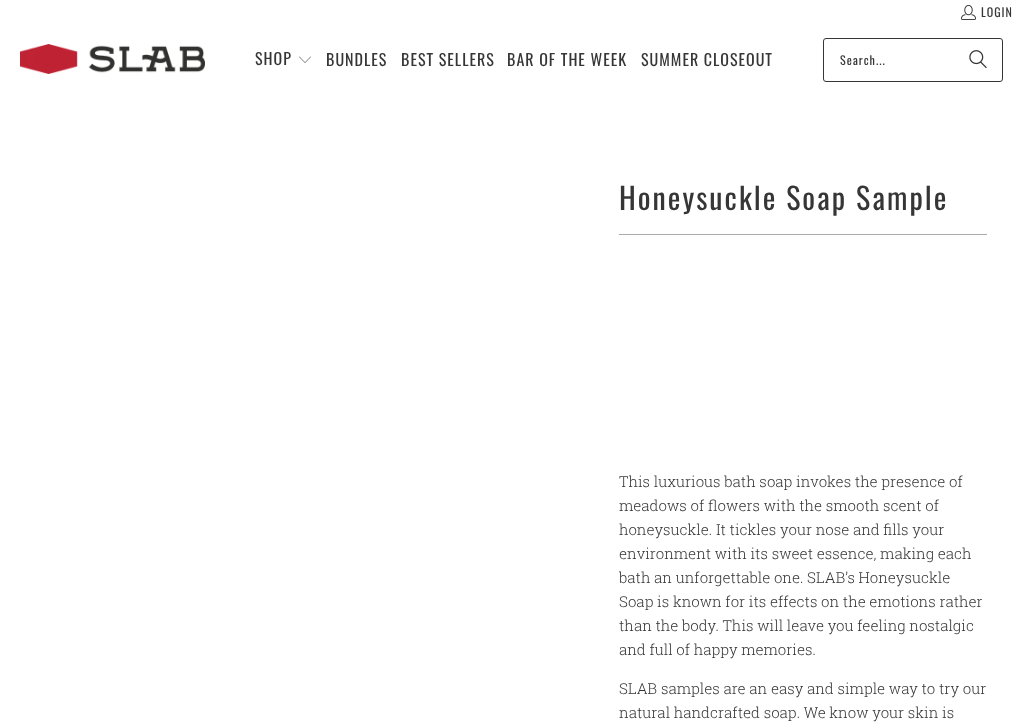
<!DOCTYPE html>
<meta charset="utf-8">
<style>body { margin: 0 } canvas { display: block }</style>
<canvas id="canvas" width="1023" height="725"></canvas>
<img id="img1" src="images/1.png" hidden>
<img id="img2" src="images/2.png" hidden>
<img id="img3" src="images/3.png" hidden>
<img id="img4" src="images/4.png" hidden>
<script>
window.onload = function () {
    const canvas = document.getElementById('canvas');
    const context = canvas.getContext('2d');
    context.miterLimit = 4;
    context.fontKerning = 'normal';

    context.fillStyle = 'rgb(255, 255, 255)';
    context.fillRect(0, 0, 1023, 725);
    context.drawImage(document.getElementById('img1'), 961, 4, 15, 16);
    context.drawImage(document.getElementById('img2'), 20, 44, 185, 30);
    context.drawImage(document.getElementById('img3'), 299, 56, 12, 7);
    context.beginPath();
    context.roundRect(823.5, 38.5, 179, 43, 2.5);
    context.strokeStyle = 'rgb(54, 54, 54)';
    context.stroke();
    context.drawImage(document.getElementById('img4'), 969, 50, 18, 19);
    context.fillStyle = 'rgb(170, 170, 170)';
    context.fillRect(619, 234, 368, 1);
    context.letterSpacing = '1px';
    context.font = '12px Oswald';
    context.fillStyle = 'rgb(54, 54, 54)';
    context.fillText('LOGIN', 981, 17);
    context.font = '16px Oswald';
    context.fillText('SHOP', 255, 65);
    context.fillText('BUNDLES', 326, 66);
    context.fillText('BEST SELLERS', 401, 66);
    context.fillText('BAR OF THE WEEK', 507, 66);
    context.fillText('SUMMER CLOSEOUT', 641, 66);
    context.font = '12px Oswald';
    context.fillText('Search...', 840, 65);
    context.letterSpacing = '2px';
    context.font = '30px Oswald';
    context.fillText('Honeysuckle Soap Sample', 619, 210);
    context.letterSpacing = '0px';
    context.font = '300 15px Roboto Slab';
    context.fillText('This luxurious bath soap invokes the presence of', 619, 487);
    context.fillText('meadows of flowers with the smooth scent of', 619, 511);
    context.fillText('honeysuckle. It tickles your nose and fills your', 619, 535);
    context.fillText('environment with its sweet essence, making each', 619, 559);
    context.fillText('bath an unforgettable one. SLAB’s Honeysuckle', 619, 583);
    context.fillText('Soap is known for its effects on the emotions rather', 619, 607);
    context.fillText('than the body. This will leave you feeling nostalgic', 619, 631);
    context.fillText('and full of happy memories.', 619, 655);
    context.fillText('SLAB samples are an easy and simple way to try our', 619, 694);
    context.fillText('natural handcrafted soap. We know your skin is', 619, 718);
};
</script>
